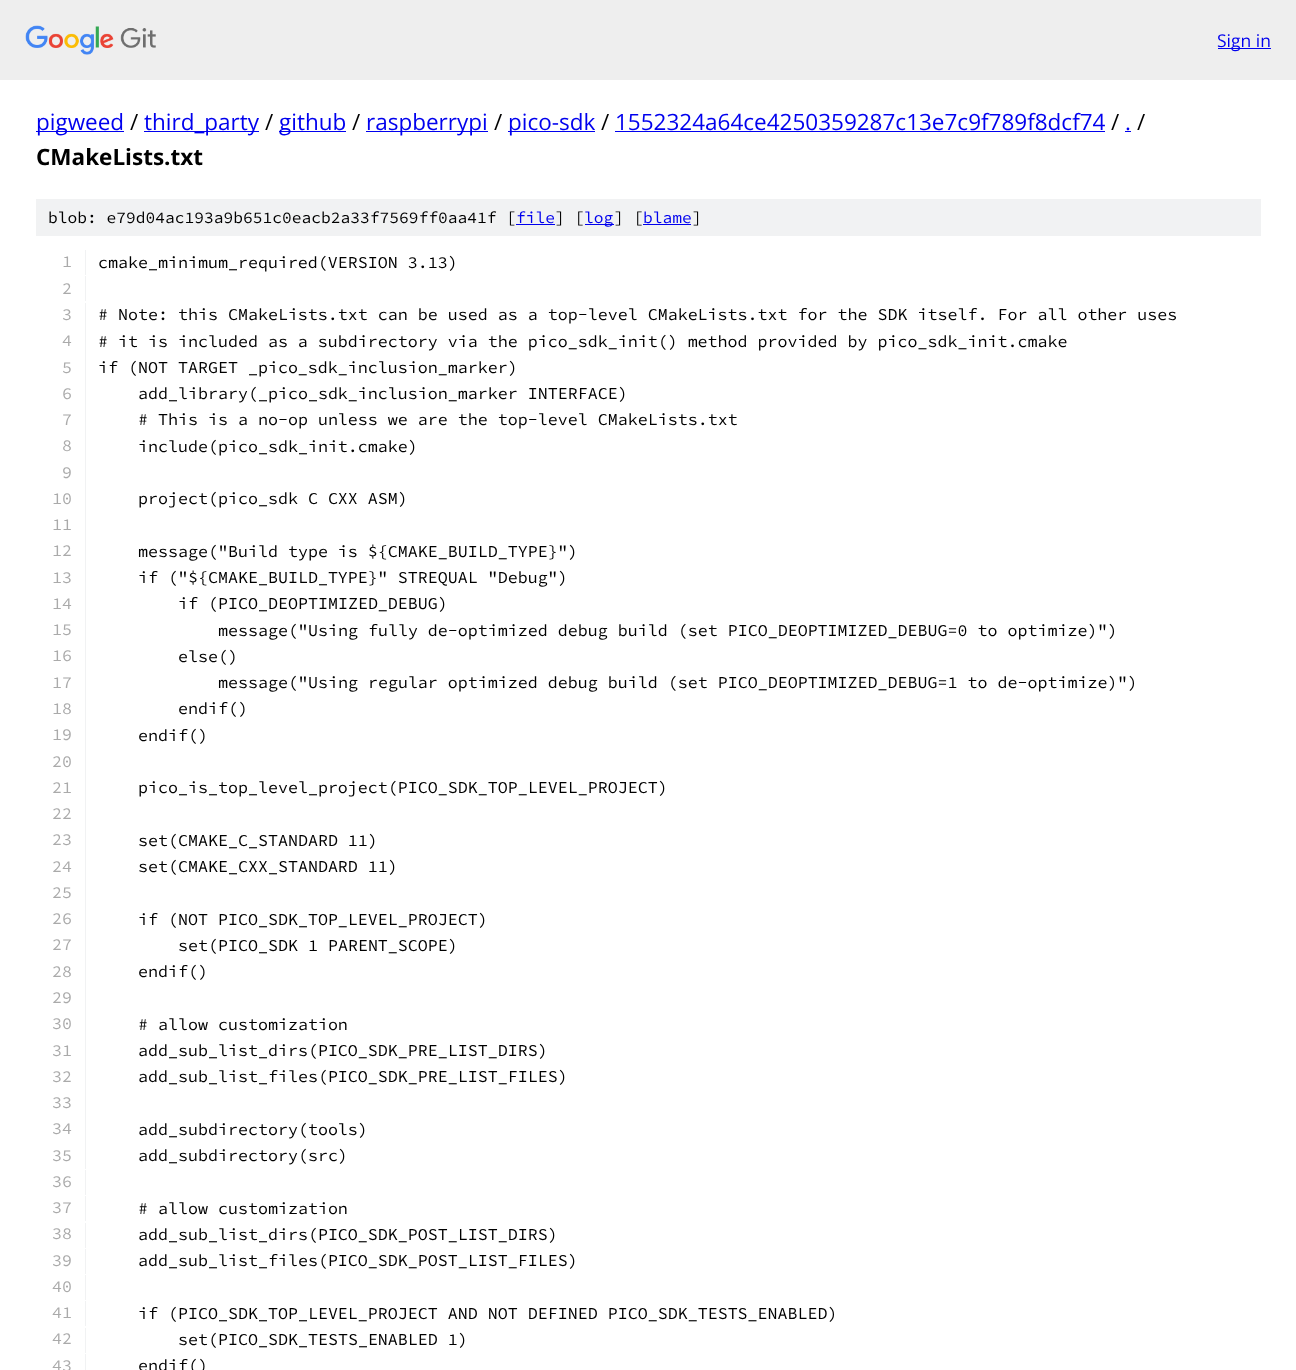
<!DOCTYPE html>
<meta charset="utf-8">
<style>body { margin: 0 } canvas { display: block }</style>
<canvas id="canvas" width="1296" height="1370"></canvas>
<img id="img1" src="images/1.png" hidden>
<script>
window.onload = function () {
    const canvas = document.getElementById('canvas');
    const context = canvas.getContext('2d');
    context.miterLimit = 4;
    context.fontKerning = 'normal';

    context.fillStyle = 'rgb(255, 255, 255)';
    context.fillRect(0, 0, 1296, 1370);
    context.fillStyle = 'rgb(238, 238, 238)';
    context.fillRect(0, 0, 1296, 80);
    context.drawImage(document.getElementById('img1'), 25, 25, 131, 30);
    context.fillStyle = 'rgb(0, 0, 238)';
    context.fillRect(1218, 48, 53, 1);
    context.fillRect(36, 131, 88, 1);
    context.fillRect(144, 131, 115, 1);
    context.fillRect(279, 131, 67, 1);
    context.fillRect(366, 131, 122, 1);
    context.fillRect(508, 131, 87, 1);
    context.fillRect(615, 131, 490, 1);
    context.fillRect(1125, 131, 6, 1);
    context.fillStyle = 'rgb(241, 242, 243)';
    context.fillRect(36, 199, 1225, 37);
    context.fillStyle = 'rgb(0, 0, 238)';
    context.fillRect(516, 224, 39, 1);
    context.fillRect(585, 224, 29, 1);
    context.fillRect(643, 224, 48, 1);
    context.fillStyle = 'rgb(241, 242, 243)';
    context.fillRect(85, 250, 1, 25);
    context.fillRect(85, 276, 1, 25);
    context.fillRect(85, 303, 1, 866);
    context.fillRect(85, 1170, 1, 25);
    context.fillRect(85, 1196, 1, 25);
    context.fillRect(85, 1223, 1, 25);
    context.fillRect(85, 1249, 1, 25);
    context.fillRect(85, 1275, 1, 25);
    context.fillRect(85, 1301, 1, 25);
    context.fillRect(85, 1328, 1, 25);
    context.fillRect(85, 1354, 1, 16);
    context.font = '17.5px Open Sans';
    context.fillStyle = 'rgb(0, 0, 238)';
    context.fillText('Sign in', 1217, 47);
    context.font = '22.5px Open Sans';
    context.fillText('pigweed', 36, 130);
    context.fillStyle = 'rgb(0, 0, 0)';
    context.fillText('/', 130, 130);
    context.fillStyle = 'rgb(0, 0, 238)';
    context.fillText('third_party', 144, 130);
    context.fillStyle = 'rgb(0, 0, 0)';
    context.fillText('/', 265, 130);
    context.fillStyle = 'rgb(0, 0, 238)';
    context.fillText('github', 279, 130);
    context.fillStyle = 'rgb(0, 0, 0)';
    context.fillText('/', 352, 130);
    context.fillStyle = 'rgb(0, 0, 238)';
    context.fillText('raspberrypi', 366, 130);
    context.fillStyle = 'rgb(0, 0, 0)';
    context.fillText('/', 494, 130);
    context.fillStyle = 'rgb(0, 0, 238)';
    context.fillText('pico-sdk', 508, 130);
    context.fillStyle = 'rgb(0, 0, 0)';
    context.fillText('/', 601, 130);
    context.fillStyle = 'rgb(0, 0, 238)';
    context.fillText('1552324a64ce4250359287c13e7c9f789f8dcf74', 615, 130);
    context.fillStyle = 'rgb(0, 0, 0)';
    context.fillText('/', 1111, 130);
    context.fillStyle = 'rgb(0, 0, 238)';
    context.fillText('.', 1125, 130);
    context.fillStyle = 'rgb(0, 0, 0)';
    context.fillText('/', 1137, 130);
    context.font = 'bold 22.5px Open Sans';
    context.fillText('CMakeLists.txt', 36, 165);
    context.font = '200 16.25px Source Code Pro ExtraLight';
    context.fillText('blob: e79d04ac193a9b651c0eacb2a33f7569ff0aa41f [', 48, 223);
    context.fillStyle = 'rgb(0, 0, 238)';
    context.fillText('file', 516, 223);
    context.fillStyle = 'rgb(0, 0, 0)';
    context.fillText('] [', 555, 223);
    context.fillStyle = 'rgb(0, 0, 238)';
    context.fillText('log', 584, 223);
    context.fillStyle = 'rgb(0, 0, 0)';
    context.fillText('] [', 614, 223);
    context.fillStyle = 'rgb(0, 0, 238)';
    context.fillText('blame', 643, 223);
    context.fillStyle = 'rgb(0, 0, 0)';
    context.fillText(']', 692, 223);
    context.font = '200 16.67px Source Code Pro ExtraLight';
    context.fillStyle = 'rgb(170, 170, 170)';
    context.fillText('1', 62, 267);
    context.fillStyle = 'rgb(0, 0, 0)';
    context.fillText('cmake_minimum_required(VERSION 3.13)', 98, 268);
    context.fillStyle = 'rgb(170, 170, 170)';
    context.fillText('2', 62, 294);
    context.fillText('3', 62, 320);
    context.fillStyle = 'rgb(0, 0, 0)';
    context.fillText('# Note: this CMakeLists.txt can be used as a top-level CMakeLists.txt for the SDK itself. For all other uses', 98, 320);
    context.fillStyle = 'rgb(170, 170, 170)';
    context.fillText('4', 62, 346);
    context.fillStyle = 'rgb(0, 0, 0)';
    context.fillText('# it is included as a subdirectory via the pico_sdk_init() method provided by pico_sdk_init.cmake', 98, 347);
    context.fillStyle = 'rgb(170, 170, 170)';
    context.fillText('5', 62, 373);
    context.fillStyle = 'rgb(0, 0, 0)';
    context.fillText('if (NOT TARGET _pico_sdk_inclusion_marker)', 98, 373);
    context.fillStyle = 'rgb(170, 170, 170)';
    context.fillText('6', 62, 399);
    context.fillStyle = 'rgb(0, 0, 0)';
    context.fillText('add_library(_pico_sdk_inclusion_marker INTERFACE)', 138, 399);
    context.fillStyle = 'rgb(170, 170, 170)';
    context.fillText('7', 62, 425);
    context.fillStyle = 'rgb(0, 0, 0)';
    context.fillText('# This is a no-op unless we are the top-level CMakeLists.txt', 138, 425);
    context.fillStyle = 'rgb(170, 170, 170)';
    context.fillText('8', 62, 451);
    context.fillStyle = 'rgb(0, 0, 0)';
    context.fillText('include(pico_sdk_init.cmake)', 138, 452);
    context.fillStyle = 'rgb(170, 170, 170)';
    context.fillText('9', 62, 478);
    context.fillText('10', 52, 504);
    context.fillStyle = 'rgb(0, 0, 0)';
    context.fillText('project(pico_sdk C CXX ASM)', 138, 504);
    context.fillStyle = 'rgb(170, 170, 170)';
    context.fillText('11', 52, 530);
    context.fillText('12', 52, 556);
    context.fillStyle = 'rgb(0, 0, 0)';
    context.fillText('message("Build type is ${CMAKE_BUILD_TYPE}")', 138, 557);
    context.fillStyle = 'rgb(170, 170, 170)';
    context.fillText('13', 52, 583);
    context.fillStyle = 'rgb(0, 0, 0)';
    context.fillText('if ("${CMAKE_BUILD_TYPE}" STREQUAL "Debug")', 138, 583);
    context.fillStyle = 'rgb(170, 170, 170)';
    context.fillText('14', 52, 609);
    context.fillStyle = 'rgb(0, 0, 0)';
    context.fillText('if (PICO_DEOPTIMIZED_DEBUG)', 178, 609);
    context.fillStyle = 'rgb(170, 170, 170)';
    context.fillText('15', 52, 635);
    context.fillStyle = 'rgb(0, 0, 0)';
    context.fillText('message("Using fully de-optimized debug build (set PICO_DEOPTIMIZED_DEBUG=0 to optimize)")', 218, 636);
    context.fillStyle = 'rgb(170, 170, 170)';
    context.fillText('16', 52, 661);
    context.fillStyle = 'rgb(0, 0, 0)';
    context.fillText('else()', 178, 662);
    context.fillStyle = 'rgb(170, 170, 170)';
    context.fillText('17', 52, 688);
    context.fillStyle = 'rgb(0, 0, 0)';
    context.fillText('message("Using regular optimized debug build (set PICO_DEOPTIMIZED_DEBUG=1 to de-optimize)")', 218, 688);
    context.fillStyle = 'rgb(170, 170, 170)';
    context.fillText('18', 52, 714);
    context.fillStyle = 'rgb(0, 0, 0)';
    context.fillText('endif()', 178, 714);
    context.fillStyle = 'rgb(170, 170, 170)';
    context.fillText('19', 52, 740);
    context.fillStyle = 'rgb(0, 0, 0)';
    context.fillText('endif()', 138, 741);
    context.fillStyle = 'rgb(170, 170, 170)';
    context.fillText('20', 52, 767);
    context.fillText('21', 52, 793);
    context.fillStyle = 'rgb(0, 0, 0)';
    context.fillText('pico_is_top_level_project(PICO_SDK_TOP_LEVEL_PROJECT)', 138, 793);
    context.fillStyle = 'rgb(170, 170, 170)';
    context.fillText('22', 52, 819);
    context.fillText('23', 52, 845);
    context.fillStyle = 'rgb(0, 0, 0)';
    context.fillText('set(CMAKE_C_STANDARD 11)', 138, 846);
    context.fillStyle = 'rgb(170, 170, 170)';
    context.fillText('24', 52, 872);
    context.fillStyle = 'rgb(0, 0, 0)';
    context.fillText('set(CMAKE_CXX_STANDARD 11)', 138, 872);
    context.fillStyle = 'rgb(170, 170, 170)';
    context.fillText('25', 52, 898);
    context.fillText('26', 52, 924);
    context.fillStyle = 'rgb(0, 0, 0)';
    context.fillText('if (NOT PICO_SDK_TOP_LEVEL_PROJECT)', 138, 925);
    context.fillStyle = 'rgb(170, 170, 170)';
    context.fillText('27', 52, 950);
    context.fillStyle = 'rgb(0, 0, 0)';
    context.fillText('set(PICO_SDK 1 PARENT_SCOPE)', 178, 951);
    context.fillStyle = 'rgb(170, 170, 170)';
    context.fillText('28', 52, 977);
    context.fillStyle = 'rgb(0, 0, 0)';
    context.fillText('endif()', 138, 977);
    context.fillStyle = 'rgb(170, 170, 170)';
    context.fillText('29', 52, 1003);
    context.fillText('30', 52, 1029);
    context.fillStyle = 'rgb(0, 0, 0)';
    context.fillText('# allow customization', 138, 1030);
    context.fillStyle = 'rgb(170, 170, 170)';
    context.fillText('31', 52, 1056);
    context.fillStyle = 'rgb(0, 0, 0)';
    context.fillText('add_sub_list_dirs(PICO_SDK_PRE_LIST_DIRS)', 138, 1056);
    context.fillStyle = 'rgb(170, 170, 170)';
    context.fillText('32', 52, 1082);
    context.fillStyle = 'rgb(0, 0, 0)';
    context.fillText('add_sub_list_files(PICO_SDK_PRE_LIST_FILES)', 138, 1082);
    context.fillStyle = 'rgb(170, 170, 170)';
    context.fillText('33', 52, 1108);
    context.fillText('34', 52, 1134);
    context.fillStyle = 'rgb(0, 0, 0)';
    context.fillText('add_subdirectory(tools)', 138, 1135);
    context.fillStyle = 'rgb(170, 170, 170)';
    context.fillText('35', 52, 1161);
    context.fillStyle = 'rgb(0, 0, 0)';
    context.fillText('add_subdirectory(src)', 138, 1161);
    context.fillStyle = 'rgb(170, 170, 170)';
    context.fillText('36', 52, 1187);
    context.fillText('37', 52, 1213);
    context.fillStyle = 'rgb(0, 0, 0)';
    context.fillText('# allow customization', 138, 1214);
    context.fillStyle = 'rgb(170, 170, 170)';
    context.fillText('38', 52, 1239);
    context.fillStyle = 'rgb(0, 0, 0)';
    context.fillText('add_sub_list_dirs(PICO_SDK_POST_LIST_DIRS)', 138, 1240);
    context.fillStyle = 'rgb(170, 170, 170)';
    context.fillText('39', 52, 1266);
    context.fillStyle = 'rgb(0, 0, 0)';
    context.fillText('add_sub_list_files(PICO_SDK_POST_LIST_FILES)', 138, 1266);
    context.fillStyle = 'rgb(170, 170, 170)';
    context.fillText('40', 52, 1292);
    context.fillText('41', 52, 1318);
    context.fillStyle = 'rgb(0, 0, 0)';
    context.fillText('if (PICO_SDK_TOP_LEVEL_PROJECT AND NOT DEFINED PICO_SDK_TESTS_ENABLED)', 138, 1319);
    context.fillStyle = 'rgb(170, 170, 170)';
    context.fillText('42', 52, 1344);
    context.fillStyle = 'rgb(0, 0, 0)';
    context.fillText('set(PICO_SDK_TESTS_ENABLED 1)', 178, 1345);
    context.fillStyle = 'rgb(170, 170, 170)';
    context.fillText('43', 52, 1371);
    context.fillStyle = 'rgb(0, 0, 0)';
    context.fillText('endif()', 138, 1371);
};
</script>
